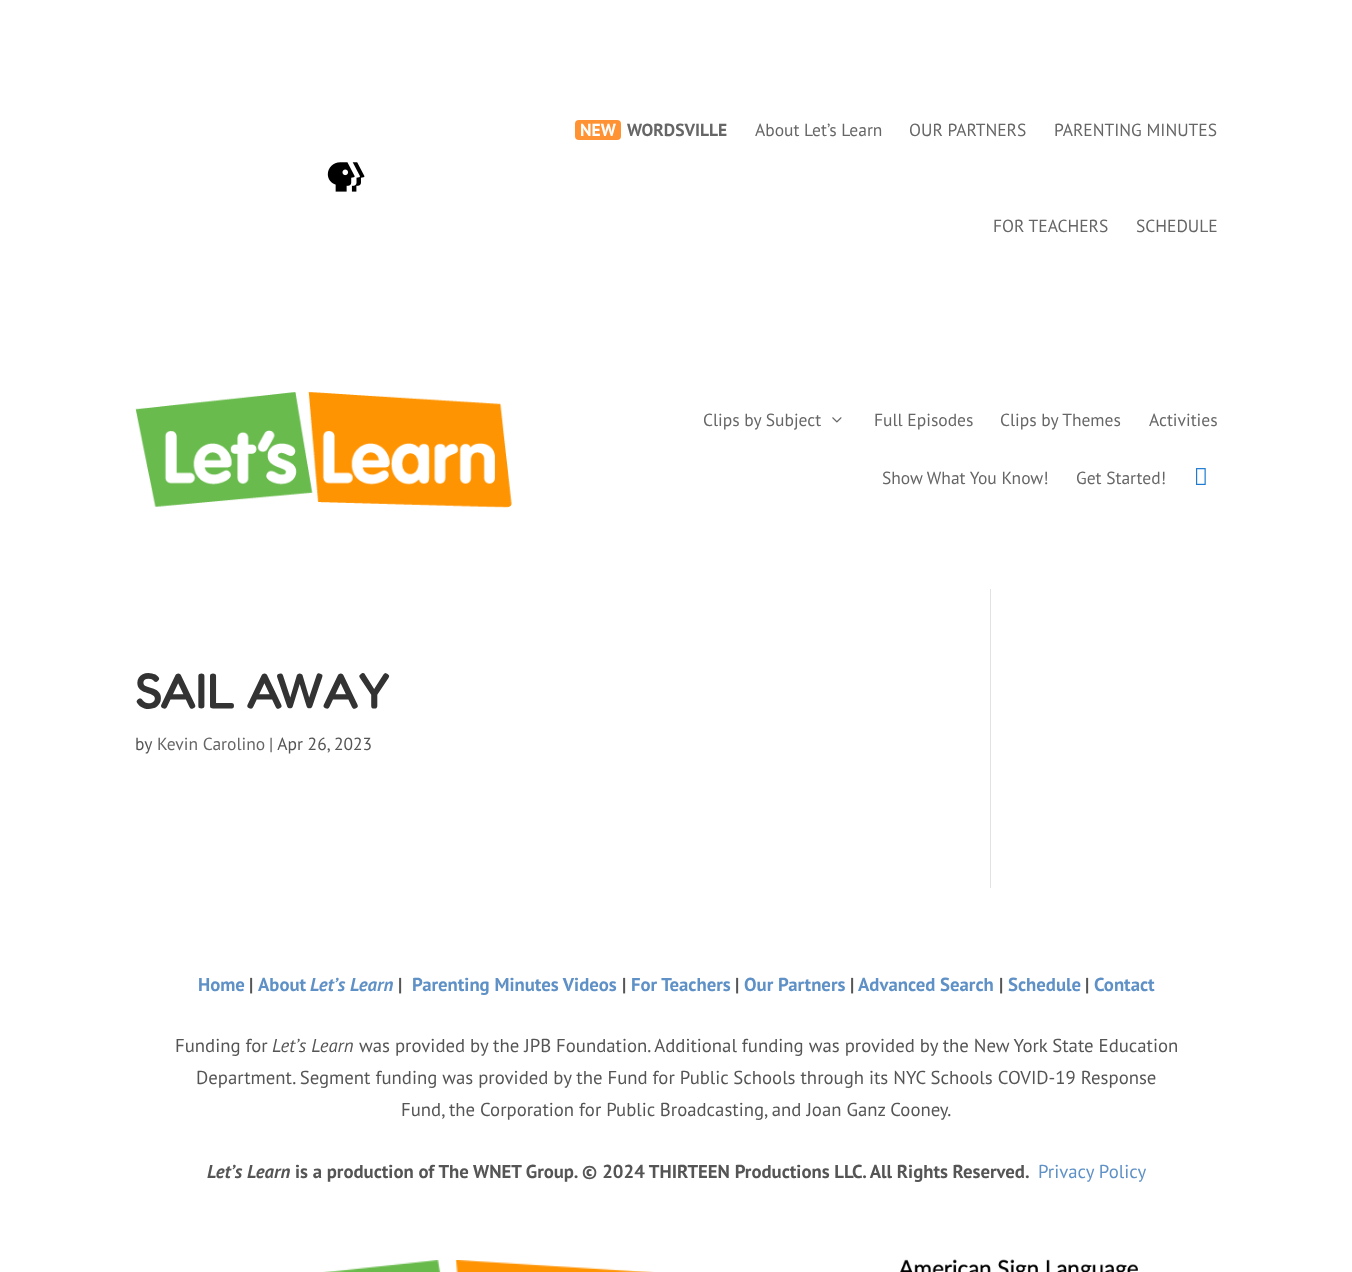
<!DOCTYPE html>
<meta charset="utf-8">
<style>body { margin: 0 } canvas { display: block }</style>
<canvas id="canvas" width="1352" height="1272"></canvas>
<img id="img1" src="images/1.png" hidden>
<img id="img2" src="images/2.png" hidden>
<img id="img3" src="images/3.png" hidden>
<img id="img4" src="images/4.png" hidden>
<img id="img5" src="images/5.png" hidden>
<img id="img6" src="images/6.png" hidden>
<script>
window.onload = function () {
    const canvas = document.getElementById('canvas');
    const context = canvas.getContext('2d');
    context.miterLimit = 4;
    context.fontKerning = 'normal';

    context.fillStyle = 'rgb(255, 255, 255)';
    context.fillRect(0, 0, 1352, 1272);
    context.drawImage(document.getElementById('img1'), 327, 162, 38, 30);
    context.fillStyle = 'rgb(255, 146, 50)';
    context.beginPath();
    context.roundRect(575, 120, 46, 20, 4);
    context.fill();
    context.drawImage(document.getElementById('img2'), 135, 391, 377, 117);
    context.drawImage(document.getElementById('img3'), 832, 417, 10, 6);
    context.drawImage(document.getElementById('img4'), 1196, 468, 10, 17);
    context.fillStyle = 'rgb(226, 226, 226)';
    context.fillRect(990, 589, 1, 299);
    context.drawImage(document.getElementById('img5'), 323, 1260, 331, 12);
    context.drawImage(document.getElementById('img6'), 900, 1259, 238, 13);
    context.font = 'bold 17.5px PT Sans';
    context.fillStyle = 'rgb(255, 255, 255)';
    context.fillText('NEW', 580, 136);
    context.fillStyle = 'rgb(102, 102, 102)';
    context.fillText('WORDSVILLE', 627, 136);
    context.font = '17.5px PT Sans';
    context.fillText('About Let’s Learn', 755, 136);
    context.fillText('OUR PARTNERS', 909, 136);
    context.fillText('PARENTING MINUTES', 1054, 136);
    context.fillText('FOR TEACHERS', 993, 232);
    context.fillText('SCHEDULE', 1136, 232);
    context.fillText('Clips by Subject', 703, 426);
    context.fillText('Full Episodes', 874, 426);
    context.fillText('Clips by Themes', 1000, 426);
    context.fillText('Activities', 1149, 426);
    context.fillText('Show What You Know!', 882, 484);
    context.fillText('Get Started!', 1076, 484);
    context.font = '500 50px Fredoka';
    context.fillStyle = 'rgb(51, 51, 51)';
    context.fillText('SAIL AWAY', 135, 708);
    context.font = '17.5px PT Sans';
    context.fillStyle = 'rgb(85, 85, 85)';
    context.fillText('by', 135, 750);
    context.fillStyle = 'rgb(102, 102, 102)';
    context.fillText('Kevin Carolino', 157, 750);
    context.fillStyle = 'rgb(85, 85, 85)';
    context.fillText('| Apr 26, 2023', 269, 750);
    context.font = 'bold 18.75px PT Sans';
    context.fillStyle = 'rgb(95, 145, 198)';
    context.fillText('Home', 198, 991);
    context.fillStyle = 'rgb(85, 85, 85)';
    context.fillText('|', 249, 991);
    context.fillStyle = 'rgb(95, 145, 198)';
    context.fillText('About', 258, 991);
    context.font = 'italic bold 18.75px PT Sans';
    context.fillText('Let’s Learn', 310, 991);
    context.font = 'bold 18.75px PT Sans';
    context.fillStyle = 'rgb(85, 85, 85)';
    context.fillText('|', 398, 991);
    context.fillStyle = 'rgb(95, 145, 198)';
    context.fillText('Parenting Minutes Videos', 412, 991);
    context.fillStyle = 'rgb(85, 85, 85)';
    context.fillText('|', 622, 991);
    context.fillStyle = 'rgb(95, 145, 198)';
    context.fillText('For Teachers', 631, 991);
    context.fillStyle = 'rgb(85, 85, 85)';
    context.fillText('|', 735, 991);
    context.fillStyle = 'rgb(95, 145, 198)';
    context.fillText('Our Partners', 744, 991);
    context.fillStyle = 'rgb(85, 85, 85)';
    context.fillText('|', 850, 991);
    context.fillStyle = 'rgb(95, 145, 198)';
    context.fillText('Advanced Search', 858, 991);
    context.fillStyle = 'rgb(85, 85, 85)';
    context.fillText('|', 999, 991);
    context.fillStyle = 'rgb(95, 145, 198)';
    context.fillText('Schedule', 1008, 991);
    context.fillStyle = 'rgb(85, 85, 85)';
    context.fillText('|', 1085, 991);
    context.fillStyle = 'rgb(95, 145, 198)';
    context.fillText('Contact', 1094, 991);
    context.font = '18.75px PT Sans';
    context.fillStyle = 'rgb(85, 85, 85)';
    context.fillText('Funding for', 175, 1052);
    context.font = 'italic 18.75px PT Sans';
    context.fillText('Let’s Learn', 272, 1052);
    context.font = '18.75px PT Sans';
    context.fillText('was provided by the JPB Foundation. Additional funding was provided by the New York State Education', 359, 1052);
    context.fillText('Department. Segment funding was provided by the Fund for Public Schools through its NYC Schools COVID-19 Response', 196, 1084);
    context.fillText('Fund, the Corporation for Public Broadcasting, and Joan Ganz Cooney.', 401, 1116);
    context.font = 'italic bold 18.75px PT Sans';
    context.fillText('Let’s Learn', 207, 1178);
    context.font = 'bold 18.75px PT Sans';
    context.fillText('is a production of The WNET Group. © 2024 THIRTEEN Productions LLC. All Rights Reserved.', 295, 1178);
    context.font = '18.75px PT Sans';
    context.fillStyle = 'rgb(95, 145, 198)';
    context.fillText('Privacy Policy', 1038, 1178);
};
</script>
